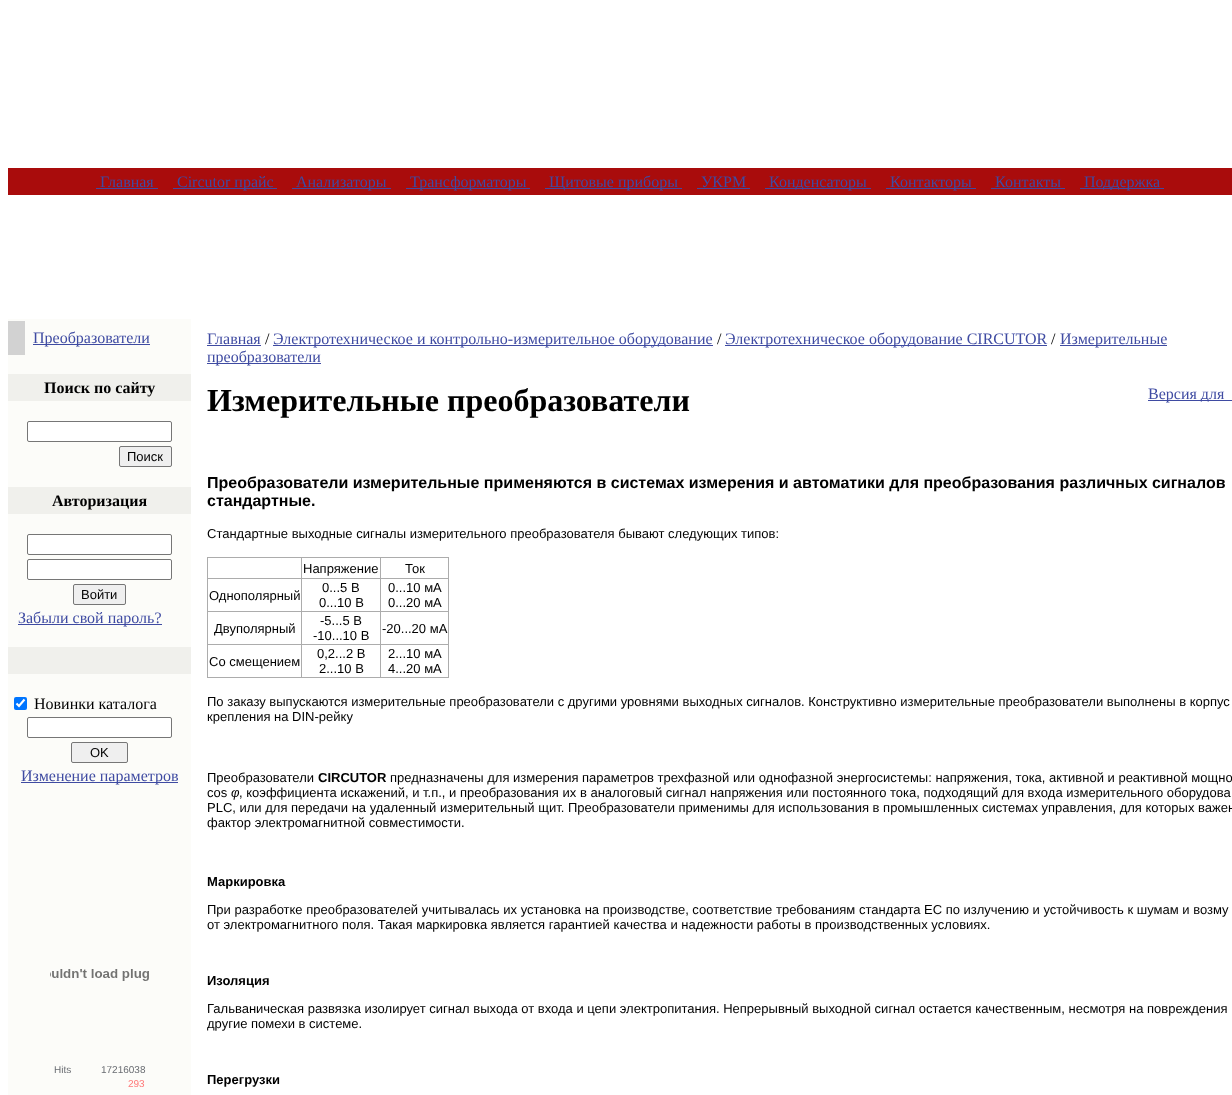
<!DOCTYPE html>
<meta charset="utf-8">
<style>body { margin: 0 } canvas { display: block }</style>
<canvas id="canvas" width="1232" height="1095"></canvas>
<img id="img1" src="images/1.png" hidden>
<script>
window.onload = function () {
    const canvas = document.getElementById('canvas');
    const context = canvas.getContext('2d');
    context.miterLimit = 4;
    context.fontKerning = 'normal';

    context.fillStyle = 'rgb(255, 255, 255)';
    context.fillRect(0, 0, 1232, 1095);
    context.fillStyle = 'rgb(169, 12, 12)';
    context.fillRect(8, 168, 1224, 27);
    context.fillStyle = 'rgb(63, 75, 162)';
    context.fillRect(96, 188, 62, 1);
    context.fillRect(173, 188, 104, 1);
    context.fillRect(292, 188, 99, 1);
    context.fillRect(406, 188, 124, 1);
    context.fillRect(545, 188, 137, 1);
    context.fillRect(697, 188, 53, 1);
    context.fillRect(765, 188, 106, 1);
    context.fillRect(886, 188, 90, 1);
    context.fillRect(991, 188, 74, 1);
    context.fillRect(1080, 188, 84, 1);
    context.fillStyle = 'rgb(252, 252, 249)';
    context.fillRect(8, 319, 183, 776);
    context.fillStyle = 'rgb(210, 210, 210)';
    context.fillRect(8, 321, 17, 34);
    context.fillStyle = 'rgb(63, 75, 162)';
    context.fillRect(33, 344, 117, 1);
    context.fillStyle = 'rgb(240, 240, 236)';
    context.fillRect(8, 374, 183, 27);
    context.fillStyle = 'rgb(255, 255, 255)';
    context.beginPath();
    context.roundRect(27.5, 421.5, 144, 20, 1.5);
    context.fill();
    context.strokeStyle = 'rgb(118, 118, 118)';
    context.stroke();
    context.fillStyle = 'rgb(239, 239, 239)';
    context.beginPath();
    context.roundRect(119.5, 446.5, 52, 20, 1.5);
    context.fill();
    context.stroke();
    context.fillStyle = 'rgb(240, 240, 236)';
    context.fillRect(8, 487, 183, 27);
    context.fillStyle = 'rgb(255, 255, 255)';
    context.beginPath();
    context.roundRect(27.5, 534.5, 144, 20, 1.5);
    context.fill();
    context.stroke();
    context.beginPath();
    context.roundRect(27.5, 559.5, 144, 20, 1.5);
    context.fill();
    context.stroke();
    context.fillStyle = 'rgb(239, 239, 239)';
    context.beginPath();
    context.roundRect(73.5, 584.5, 52, 20, 1.5);
    context.fill();
    context.stroke();
    context.fillStyle = 'rgb(63, 75, 162)';
    context.fillRect(18, 624, 144, 1);
    context.fillStyle = 'rgb(240, 240, 236)';
    context.fillRect(8, 647, 183, 27);
    context.fillStyle = 'rgb(0, 117, 255)';
    context.beginPath();
    context.roundRect(14, 697, 13, 13, 2);
    context.fill();
    context.beginPath();
    context.moveTo(16.5, 703.5);
    context.lineTo(19, 706);
    context.lineTo(24.5, 699.5);
    context.strokeStyle = 'rgb(255, 255, 255)';
    context.lineWidth = 2.1;
    context.stroke();
    context.fillStyle = 'rgb(255, 255, 255)';
    context.beginPath();
    context.roundRect(27.5, 717.5, 144, 20, 1.5);
    context.fill();
    context.strokeStyle = 'rgb(118, 118, 118)';
    context.lineWidth = 1;
    context.stroke();
    context.fillStyle = 'rgb(239, 239, 239)';
    context.beginPath();
    context.roundRect(71.5, 742.5, 56, 20, 1.5);
    context.fill();
    context.stroke();
    context.fillStyle = 'rgb(63, 75, 162)';
    context.fillRect(21, 782, 157, 1);
    context.drawImage(document.getElementById('img1'), 50, 969, 99, 12);
    context.fillRect(207, 345, 54, 1);
    context.fillRect(273, 345, 440, 1);
    context.fillRect(725, 345, 322, 1);
    context.fillRect(1060, 345, 107, 1);
    context.fillRect(207, 363, 114, 1);
    context.fillRect(1148, 400, 84, 1);
    context.fillStyle = 'rgb(172, 172, 172)';
    context.fillRect(380, 557, 69, 1);
    context.fillRect(380, 578, 69, 1);
    context.fillRect(380, 611, 69, 1);
    context.fillRect(380, 644, 69, 1);
    context.fillRect(448, 644, 1, 34);
    context.fillRect(380, 677, 69, 1);
    context.fillRect(380, 644, 1, 34);
    context.fillRect(301, 644, 80, 1);
    context.fillRect(380, 611, 1, 34);
    context.fillRect(301, 611, 80, 1);
    context.fillRect(380, 578, 1, 34);
    context.fillRect(301, 578, 80, 1);
    context.fillRect(380, 557, 1, 22);
    context.fillRect(301, 557, 80, 1);
    context.fillRect(301, 677, 80, 1);
    context.fillRect(301, 644, 1, 34);
    context.fillRect(207, 644, 95, 1);
    context.fillRect(301, 611, 1, 34);
    context.fillRect(207, 611, 95, 1);
    context.fillRect(301, 578, 1, 34);
    context.fillRect(207, 578, 95, 1);
    context.fillRect(301, 557, 1, 22);
    context.fillRect(207, 557, 95, 1);
    context.fillRect(207, 677, 95, 1);
    context.fillRect(207, 644, 1, 34);
    context.fillRect(207, 611, 1, 34);
    context.fillRect(207, 578, 1, 34);
    context.fillRect(207, 557, 1, 22);
    context.fillRect(448, 611, 1, 34);
    context.fillRect(448, 578, 1, 34);
    context.fillRect(448, 557, 1, 22);
    context.font = '16px Liberation Serif';
    context.fillStyle = 'rgb(63, 75, 162)';
    context.fillText('Главная', 100, 187);
    context.fillText('Circutor прайс', 177, 187);
    context.fillText('Анализаторы', 296, 187);
    context.fillText('Трансформаторы', 410, 187);
    context.fillText('Щитовые приборы', 549, 187);
    context.fillText('УКРМ', 701, 187);
    context.fillText('Конденсаторы', 769, 187);
    context.fillText('Контакторы', 890, 187);
    context.fillText('Контакты', 995, 187);
    context.fillText('Поддержка', 1084, 187);
    context.fillText('Преобразователи', 33, 343);
    context.font = 'bold 16px Liberation Serif';
    context.fillStyle = 'rgb(0, 0, 0)';
    context.fillText('Поиск по сайту', 44, 393);
    context.font = '13px Liberation Sans';
    context.fillText('Поиск', 127, 461);
    context.font = 'bold 16px Liberation Serif';
    context.fillText('Авторизация', 52, 506);
    context.font = '13px Liberation Sans';
    context.fillText('Войти', 81, 599);
    context.font = '16px Liberation Serif';
    context.fillStyle = 'rgb(63, 75, 162)';
    context.fillText('Забыли свой пароль?', 18, 623);
    context.fillStyle = 'rgb(0, 0, 0)';
    context.fillText('Новинки каталога', 34, 709);
    context.font = '13px Liberation Sans';
    context.fillText('OK', 90, 757);
    context.font = '16px Liberation Serif';
    context.fillStyle = 'rgb(63, 75, 162)';
    context.fillText('Изменение параметров', 21, 781);
    context.font = '10px Liberation Sans';
    context.fillStyle = 'rgb(105, 108, 114)';
    context.fillText('Hits', 54, 1073);
    context.fillText('17216038', 101, 1073);
    context.fillStyle = 'rgb(255, 121, 121)';
    context.fillText('293', 128, 1087);
    context.font = '16px Liberation Serif';
    context.fillStyle = 'rgb(63, 75, 162)';
    context.fillText('Главная', 207, 344);
    context.fillStyle = 'rgb(0, 0, 0)';
    context.fillText('/', 265, 344);
    context.fillStyle = 'rgb(63, 75, 162)';
    context.fillText('Электротехническое и контрольно-измерительное оборудование', 273, 344);
    context.fillStyle = 'rgb(0, 0, 0)';
    context.fillText('/', 717, 344);
    context.fillStyle = 'rgb(63, 75, 162)';
    context.fillText('Электротехническое оборудование CIRCUTOR', 725, 344);
    context.fillStyle = 'rgb(0, 0, 0)';
    context.fillText('/', 1051, 344);
    context.fillStyle = 'rgb(63, 75, 162)';
    context.fillText('Измерительные', 1060, 344);
    context.fillText('преобразователи', 207, 362);
    context.font = 'bold 32px Liberation Serif';
    context.fillStyle = 'rgb(0, 0, 0)';
    context.fillText('Измерительные преобразователи', 207, 411);
    context.font = '16px Liberation Serif';
    context.fillStyle = 'rgb(63, 75, 162)';
    context.fillText('Версия для', 1148, 399);
    context.font = 'bold 16px Liberation Sans';
    context.fillStyle = 'rgb(0, 0, 0)';
    context.fillText('Преобразователи измерительные применяются в системах измерения и автоматики для преобразования различных сигналов', 207, 488);
    context.fillText('стандартные.', 207, 506);
    context.font = '13px Liberation Sans';
    context.fillText('Стандартные выходные сигналы измерительного преобразователя бывают следующих типов:', 207, 538);
    context.fillText('Напряжение', 303, 573);
    context.fillText('Ток', 405, 573);
    context.fillText('Однополярный', 209, 600);
    context.fillText('0...5 В', 322, 592);
    context.fillText('0...10 В', 319, 607);
    context.fillText('0...10 мА', 388, 592);
    context.fillText('0...20 мА', 388, 607);
    context.fillText('Двуполярный', 214, 633);
    context.fillText('-5...5 В', 320, 625);
    context.fillText('-10...10 В', 313, 640);
    context.fillText('-20...20 мА', 382, 633);
    context.fillText('Со смещением', 209, 666);
    context.fillText('0,2...2 В', 317, 658);
    context.fillText('2...10 В', 319, 673);
    context.fillText('2...10 мА', 388, 658);
    context.fillText('4...20 мА', 388, 673);
    context.fillText('По заказу выпускаются измерительные преобразователи с другими уровнями выходных сигналов. Конструктивно измерительные преобразователи выполнены в корпус', 207, 706);
    context.fillText('крепления на DIN-рейку', 207, 721);
    context.fillText('Преобразователи', 207, 782);
    context.font = 'bold 13px Liberation Sans';
    context.fillText('CIRCUTOR', 318, 782);
    context.font = '13px Liberation Sans';
    context.fillText('предназначены для измерения параметров трехфазной или однофазной энергосистемы: напряжения, тока, активной и реактивной мощно', 390, 782);
    context.fillText('cos', 207, 797);
    context.font = 'italic 13px Liberation Sans';
    context.fillText('φ', 231, 797);
    context.font = '13px Liberation Sans';
    context.fillText(', коэффициента искажений, и т.п., и преобразования их в аналоговый сигнал напряжения или постоянного тока, подходящий для входа измерительного оборудова', 239, 797);
    context.fillText('PLC, или для передачи на удаленный измерительный щит. Преобразователи применимы для использования в промышленных системах управления, для которых важен', 207, 812);
    context.fillText('фактор электромагнитной совместимости.', 207, 827);
    context.font = 'bold 13px Liberation Sans';
    context.fillText('Маркировка', 207, 886);
    context.font = '13px Liberation Sans';
    context.fillText('При разработке преобразователей учитывалась их установка на производстве, соответствие требованиям стандарта EC по излучению и устойчивость к шумам и возму', 207, 914);
    context.fillText('от электромагнитного поля. Такая маркировка является гарантией качества и надежности работы в производственных условиях.', 207, 929);
    context.font = 'bold 13px Liberation Sans';
    context.fillText('Изоляция', 207, 985);
    context.font = '13px Liberation Sans';
    context.fillText('Гальваническая развязка изолирует сигнал выхода от входа и цепи электропитания. Непрерывный выходной сигнал остается качественным, несмотря на повреждения', 207, 1013);
    context.fillText('другие помехи в системе.', 207, 1028);
    context.font = 'bold 13px Liberation Sans';
    context.fillText('Перегрузки', 207, 1084);
};
</script>
